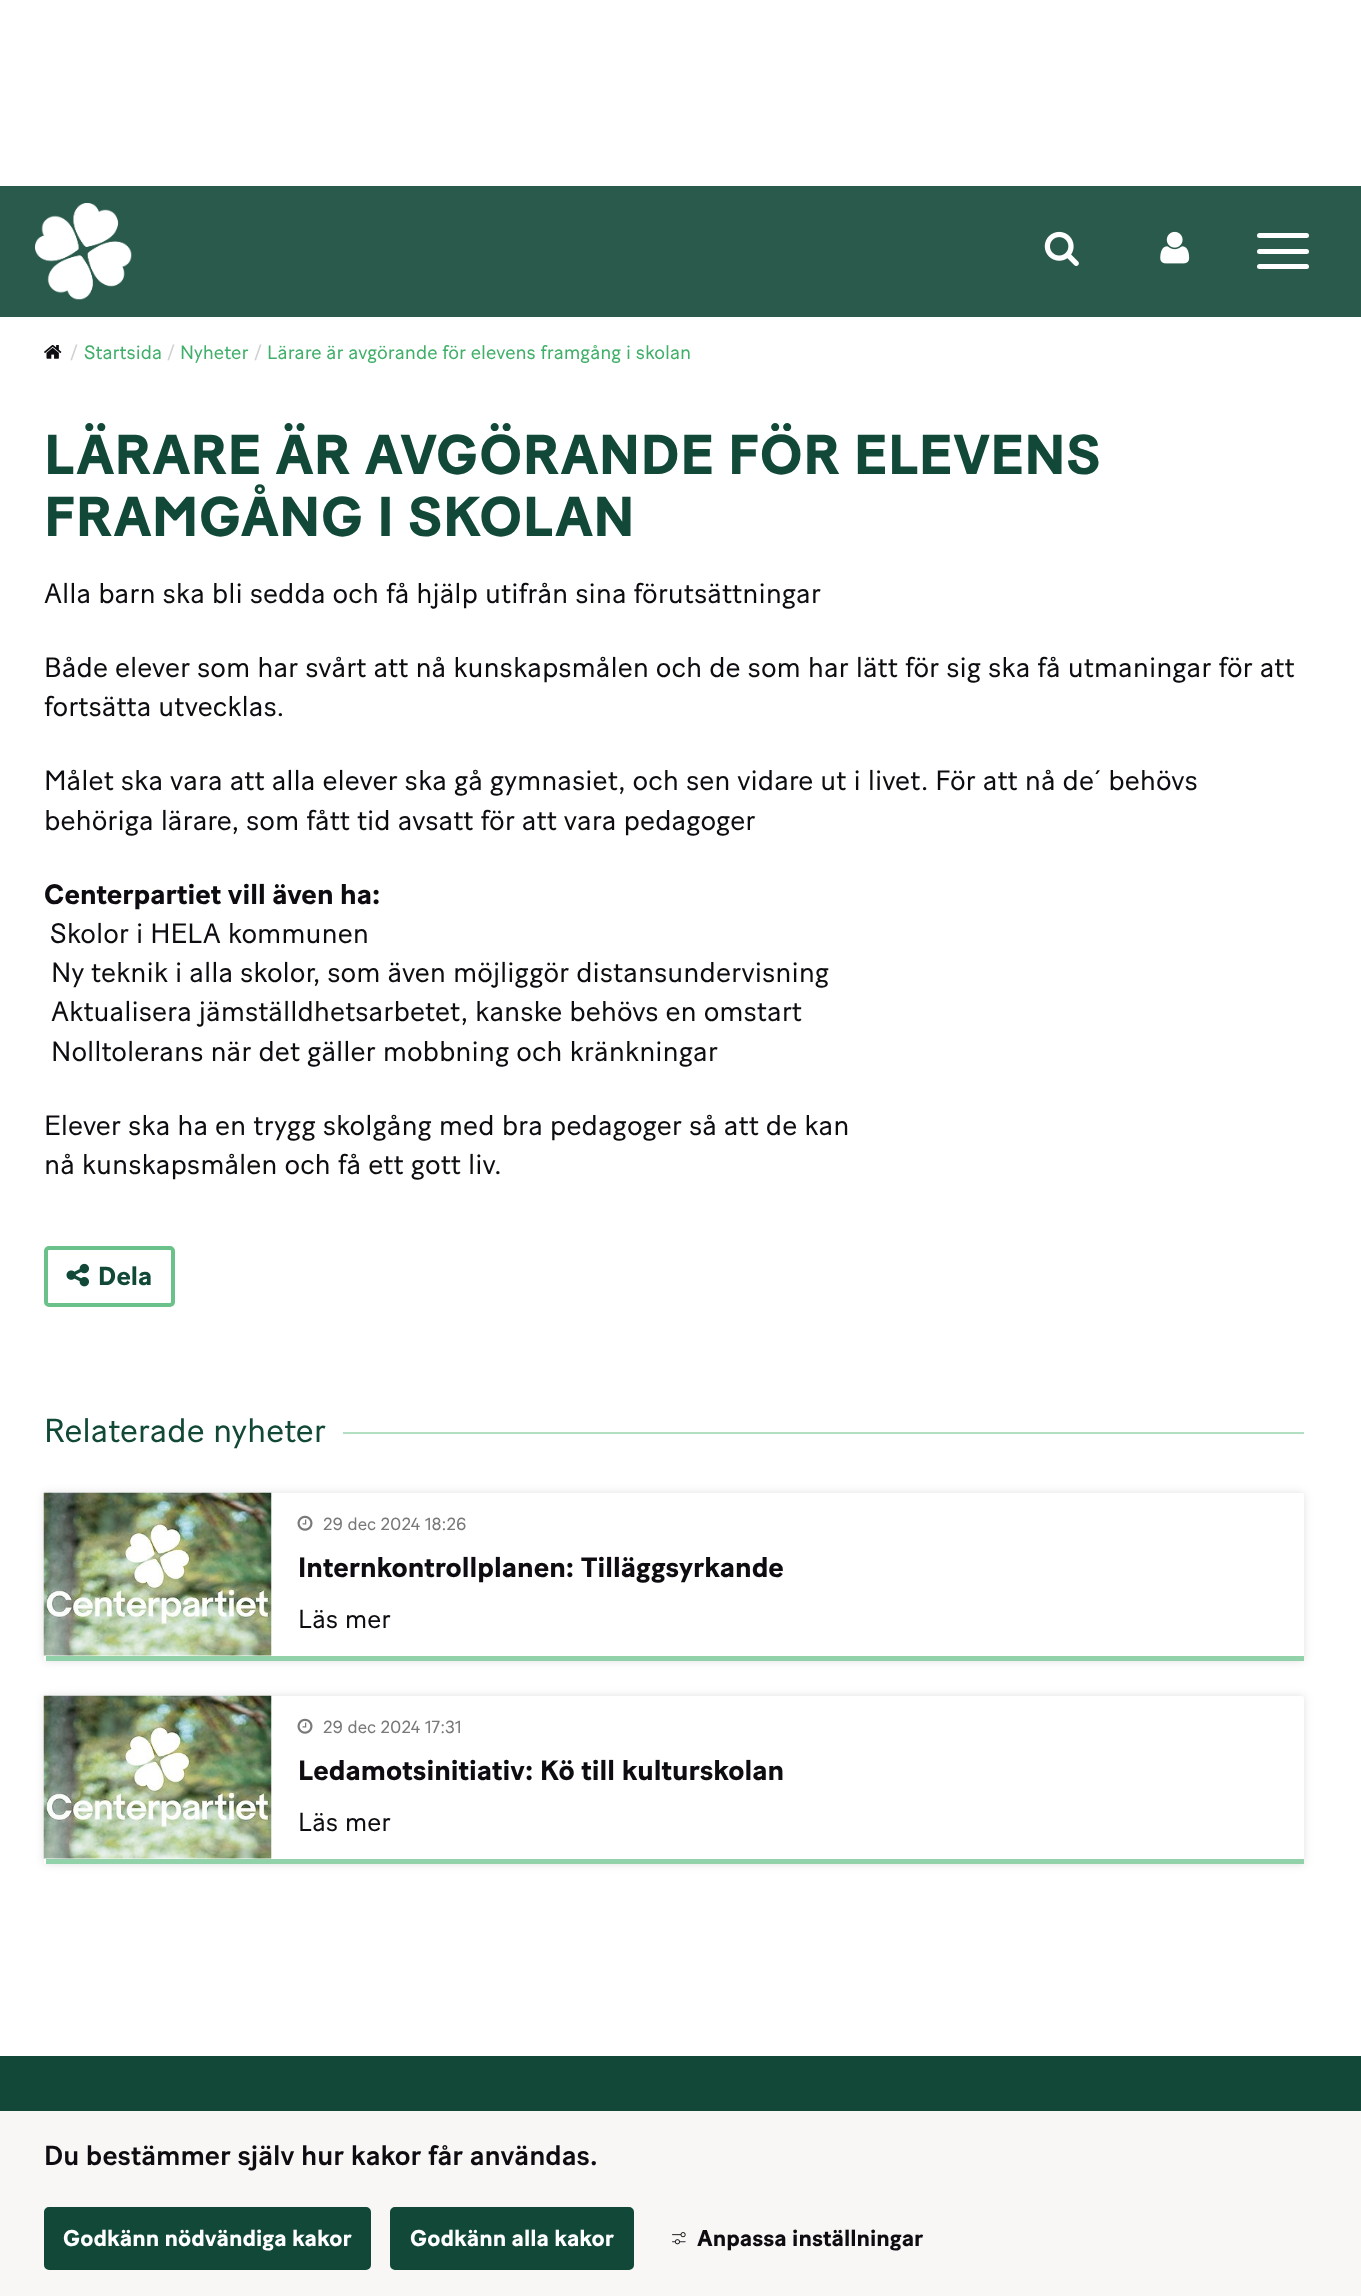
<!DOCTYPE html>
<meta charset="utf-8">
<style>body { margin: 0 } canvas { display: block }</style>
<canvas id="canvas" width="1361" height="2296"></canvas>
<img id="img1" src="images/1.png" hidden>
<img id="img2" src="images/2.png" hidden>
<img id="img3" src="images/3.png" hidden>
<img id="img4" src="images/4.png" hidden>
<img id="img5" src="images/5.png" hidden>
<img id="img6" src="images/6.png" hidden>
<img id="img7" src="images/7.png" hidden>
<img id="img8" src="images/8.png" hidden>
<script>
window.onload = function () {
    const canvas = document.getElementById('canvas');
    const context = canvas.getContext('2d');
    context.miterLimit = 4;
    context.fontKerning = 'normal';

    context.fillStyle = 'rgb(255, 255, 255)';
    context.fillRect(0, 0, 1361, 2296);
    context.fillStyle = 'rgb(41, 90, 76)';
    context.fillRect(0, 186, 1361, 131);
    context.drawImage(document.getElementById('img1'), 35, 203, 97, 97);
    context.drawImage(document.getElementById('img2'), 1044, 231, 35, 35);
    context.drawImage(document.getElementById('img3'), 1160, 231, 30, 33);
    context.fillStyle = 'rgb(255, 255, 255)';
    context.beginPath();
    context.roundRect(1257, 233, 52, 5, 2.5);
    context.fill();
    context.beginPath();
    context.roundRect(1257, 249, 52, 5, 2.5);
    context.fill();
    context.beginPath();
    context.roundRect(1257, 264, 52, 5, 2.5);
    context.fill();
    context.drawImage(document.getElementById('img4'), 44, 345, 18, 14);
    context.beginPath();
    context.roundRect(46, 1248, 127, 57, 3);
    context.strokeStyle = 'rgb(106, 193, 138)';
    context.lineWidth = 4;
    context.stroke();
    context.drawImage(document.getElementById('img5'), 66, 1263, 23, 24);
    context.fillStyle = 'rgb(179, 223, 195)';
    context.fillRect(343, 1432, 961, 2);
    context.fillStyle = 'rgba(0, 0, 0, 0.12)';
    context.filter = 'blur(4.5px)';
    context.beginPath();
    context.roundRect(44, 1493, 1260, 168, 2);
    context.fill();
    context.filter = 'none';
    context.fillStyle = 'rgb(255, 255, 255)';
    context.beginPath();
    context.roundRect(44, 1493, 1260, 168, 2);
    context.fill();
    context.fillStyle = 'rgba(64, 175, 105, 0.57)';
    context.fillRect(46, 1656, 1258, 5);
    context.drawImage(document.getElementById('img6'), 43, 1492, 229, 164);
    context.drawImage(document.getElementById('img7'), 297, 1515, 16, 16);
    context.fillStyle = 'rgba(0, 0, 0, 0.12)';
    context.filter = 'blur(4.5px)';
    context.beginPath();
    context.roundRect(44, 1696, 1260, 168, 2);
    context.fill();
    context.filter = 'none';
    context.fillStyle = 'rgb(255, 255, 255)';
    context.beginPath();
    context.roundRect(44, 1696, 1260, 168, 2);
    context.fill();
    context.fillStyle = 'rgba(64, 175, 105, 0.57)';
    context.fillRect(46, 1859, 1258, 5);
    context.drawImage(document.getElementById('img6'), 43, 1695, 229, 164);
    context.drawImage(document.getElementById('img7'), 297, 1718, 16, 16);
    context.fillStyle = 'rgb(17, 72, 56)';
    context.fillRect(0, 2056, 1361, 55);
    context.fillStyle = 'rgb(248, 247, 245)';
    context.fillRect(0, 2111, 1361, 185);
    context.fillStyle = 'rgb(17, 72, 56)';
    context.beginPath();
    context.roundRect(45, 2208, 325, 61, 4);
    context.fill();
    context.strokeStyle = 'rgb(17, 72, 56)';
    context.lineWidth = 2;
    context.stroke();
    context.beginPath();
    context.roundRect(391, 2208, 242, 61, 4);
    context.fill();
    context.stroke();
    context.drawImage(document.getElementById('img8'), 672, 2232, 14, 13);
    context.font = '19.25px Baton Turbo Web';
    context.fillStyle = 'rgb(209, 209, 209)';
    context.fillText('/', 70, 359);
    context.fillStyle = 'rgb(64, 175, 105)';
    context.fillText('Startsida', 84, 359);
    context.fillStyle = 'rgb(209, 209, 209)';
    context.fillText('/', 167, 359);
    context.fillStyle = 'rgb(64, 175, 105)';
    context.fillText('Nyheter', 180, 359);
    context.fillStyle = 'rgb(209, 209, 209)';
    context.fillText('/', 254, 359);
    context.fillStyle = 'rgb(64, 175, 105)';
    context.fillText('Lärare är avgörande för elevens framgång i skolan', 267, 359);
    context.letterSpacing = '0.55px';
    context.font = 'bold 56px Baton Turbo Web';
    context.fillStyle = 'rgb(17, 72, 56)';
    context.fillText('LÄRARE ÄR AVGÖRANDE FÖR ELEVENS', 44, 474);
    context.fillText('FRAMGÅNG I SKOLAN', 44, 536);
    context.letterSpacing = '0px';
    context.font = '28px Baton Turbo Web';
    context.fillStyle = 'rgb(15, 12, 17)';
    context.fillText('Alla barn ska bli sedda och få hjälp utifrån sina förutsättningar', 44, 603);
    context.fillText('Både elever som har svårt att nå kunskapsmålen och de som har lätt för sig ska få utmaningar för att', 44, 677);
    context.fillText('fortsätta utvecklas.', 44, 716);
    context.fillText('Målet ska vara att alla elever ska gå gymnasiet, och sen vidare ut i livet. För att nå de´ behövs', 44, 790);
    context.fillText('behöriga lärare, som fått tid avsatt för att vara pedagoger', 44, 830);
    context.font = 'bold 28px Baton Turbo Web';
    context.fillText('Centerpartiet vill även ha:', 44, 904);
    context.font = '28px Baton Turbo Web';
    context.fillText('Skolor i HELA kommunen', 50, 943);
    context.fillText('Ny teknik i alla skolor, som även möjliggör distansundervisning', 51, 982);
    context.fillText('Aktualisera jämställdhetsarbetet, kanske behövs en omstart', 51, 1021);
    context.fillText('Nolltolerans när det gäller mobbning och kränkningar', 51, 1061);
    context.fillText('Elever ska ha en trygg skolgång med bra pedagoger så att de kan', 44, 1135);
    context.fillText('nå kunskapsmålen och få ett gott liv.', 44, 1174);
    context.font = 'bold 26px Baton Turbo Web';
    context.fillStyle = 'rgb(17, 72, 56)';
    context.fillText('Dela', 98, 1285);
    context.font = '33.25px Baton Turbo Web';
    context.fillText('Relaterade nyheter', 44, 1442);
    context.font = '17.5px Baton Turbo Web';
    context.fillStyle = 'rgb(121, 121, 121)';
    context.fillText('29 dec 2024 18:26', 323, 1530);
    context.font = 'bold 28px Baton Turbo Web';
    context.fillStyle = 'rgb(15, 12, 17)';
    context.fillText('Internkontrollplanen: Tilläggsyrkande', 298, 1577);
    context.font = '26px Baton Turbo Web';
    context.fillText('Läs mer', 298, 1628);
    context.font = '17.5px Baton Turbo Web';
    context.fillStyle = 'rgb(121, 121, 121)';
    context.fillText('29 dec 2024 17:31', 323, 1733);
    context.font = 'bold 28px Baton Turbo Web';
    context.fillStyle = 'rgb(15, 12, 17)';
    context.fillText('Ledamotsinitiativ: Kö till kulturskolan', 298, 1780);
    context.font = '26px Baton Turbo Web';
    context.fillText('Läs mer', 298, 1831);
    context.font = '500 27.6px Baton Turbo Web';
    context.fillText('Du bestämmer själv hur kakor får användas.', 44, 2165);
    context.font = 'bold 22.75px Baton Turbo Web';
    context.fillStyle = 'rgb(255, 255, 255)';
    context.fillText('Godkänn nödvändiga kakor', 63, 2246);
    context.fillText('Godkänn alla kakor', 410, 2246);
    context.fillStyle = 'rgb(15, 12, 17)';
    context.fillText('Anpassa inställningar', 697, 2246);
};
</script>
